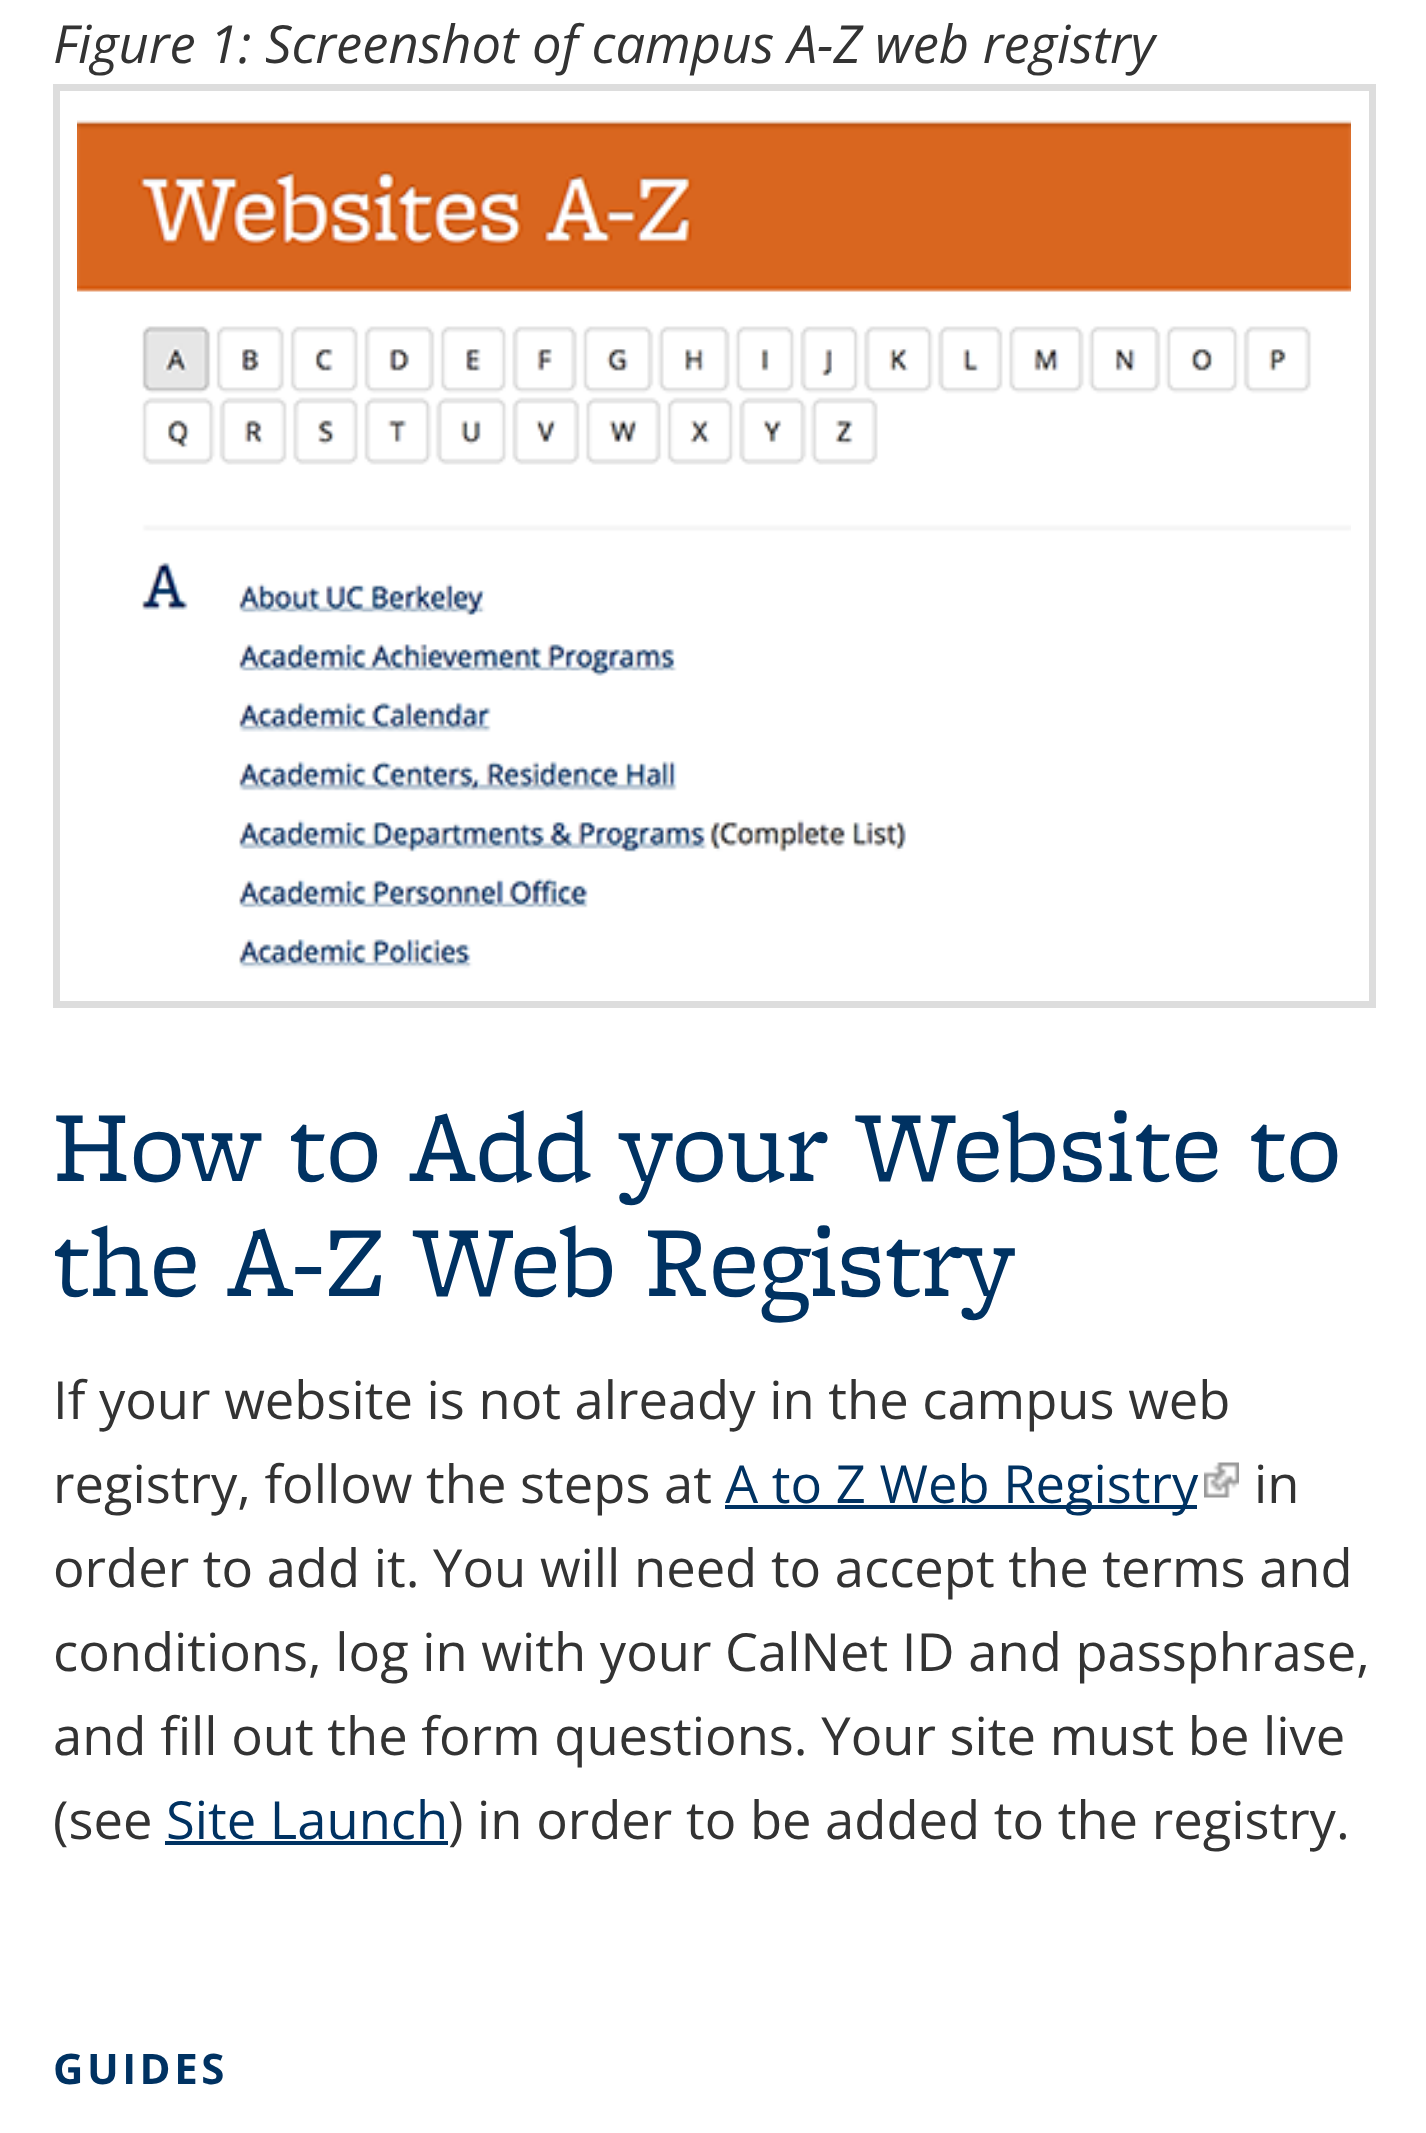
<!DOCTYPE html>
<meta charset="utf-8">
<style>body { margin: 0 } canvas { display: block }</style>
<canvas id="canvas" width="1426" height="2133"></canvas>
<img id="img1" src="images/1.png" hidden>
<img id="img2" src="images/2.png" hidden>
<script>
window.onload = function () {
    const canvas = document.getElementById('canvas');
    const context = canvas.getContext('2d');
    context.miterLimit = 4;
    context.fontKerning = 'normal';

    context.fillStyle = 'rgb(255, 255, 255)';
    context.fillRect(0, 0, 1426, 2133);
    context.strokeStyle = 'rgb(221, 221, 221)';
    context.lineWidth = 7;
    context.strokeRect(56.5, 87.5, 1316, 917);
    context.drawImage(document.getElementById('img1'), 77, 120, 1274, 849);
    context.fillStyle = 'rgb(0, 50, 98)';
    context.fillRect(725, 1505, 472, 4);
    context.drawImage(document.getElementById('img2'), 1204, 1462, 35, 36);
    context.fillRect(165, 1841, 283, 4);
    context.font = 'italic 52.5px Open Sans';
    context.fillStyle = 'rgb(51, 51, 51)';
    context.fillText('Figure 1: Screenshot of campus A-Z web registry', 53, 63);
    context.font = '105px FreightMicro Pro';
    context.fillStyle = 'rgb(0, 50, 98)';
    context.fillText('How to Add your Website to', 53, 1181);
    context.fillText('the A-Z Web Registry', 53, 1296);
    context.font = '52.5px Open Sans';
    context.fillStyle = 'rgb(51, 51, 51)';
    context.fillText('If your website is not already in the campus web', 53, 1419);
    context.fillText('registry, follow the steps at', 53, 1503);
    context.fillStyle = 'rgb(0, 50, 98)';
    context.fillText('A to Z Web Registry', 725, 1503);
    context.fillStyle = 'rgb(51, 51, 51)';
    context.fillText('in', 1254, 1503);
    context.fillText('order to add it. You will need to accept the terms and', 53, 1587);
    context.fillText('conditions, log in with your CalNet ID and passphrase,', 53, 1671);
    context.fillText('and fill out the form questions. Your site must be live', 53, 1755);
    context.fillText('(see', 53, 1839);
    context.fillStyle = 'rgb(0, 50, 98)';
    context.fillText('Site Launch', 166, 1839);
    context.fillStyle = 'rgb(51, 51, 51)';
    context.fillText(') in order to be added to the registry.', 448, 1839);
    context.letterSpacing = '3.5px';
    context.font = 'bold 42px Open Sans';
    context.fillStyle = 'rgb(0, 50, 98)';
    context.fillText('GUIDES', 53, 2084);
};
</script>
